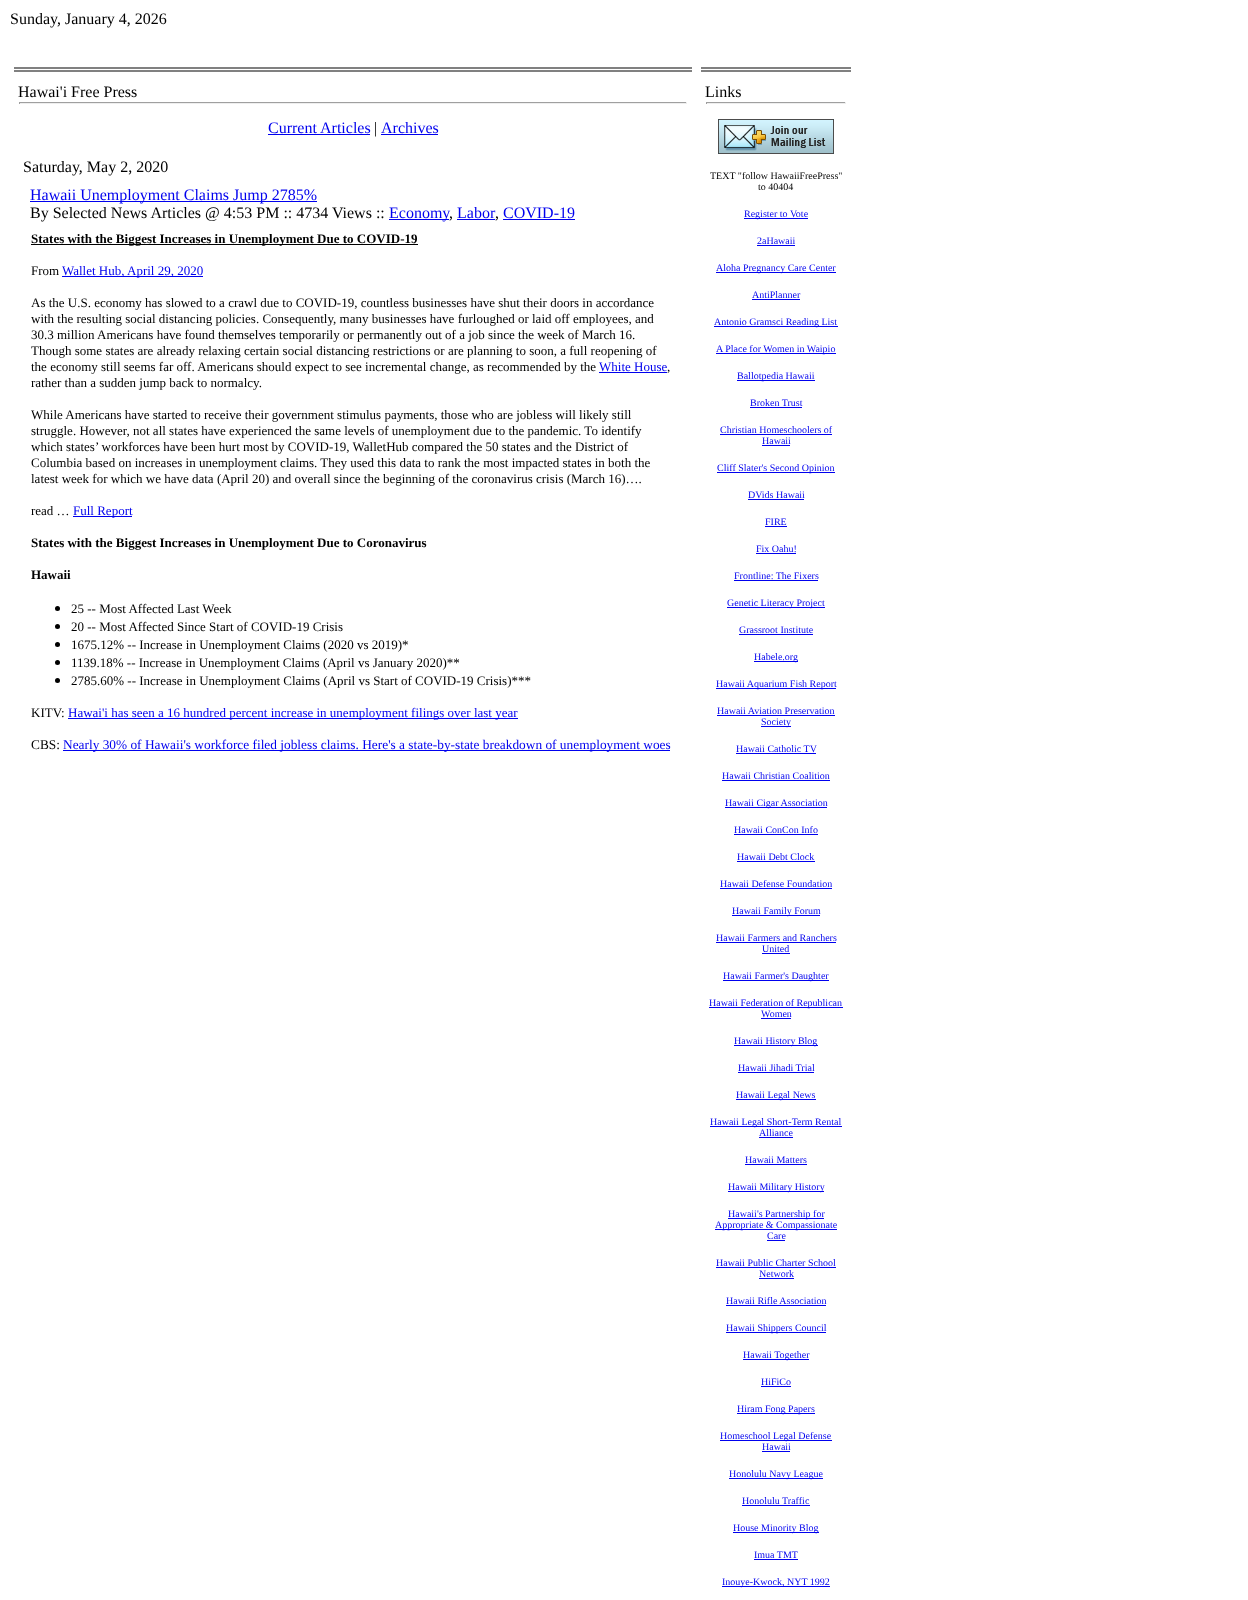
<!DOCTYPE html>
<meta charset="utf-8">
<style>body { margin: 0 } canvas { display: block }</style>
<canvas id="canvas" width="1248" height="1600"></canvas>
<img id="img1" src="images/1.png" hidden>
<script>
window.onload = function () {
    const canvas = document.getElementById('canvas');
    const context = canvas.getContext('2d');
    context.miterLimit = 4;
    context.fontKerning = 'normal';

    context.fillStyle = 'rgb(255, 255, 255)';
    context.fillRect(0, 0, 1248, 1600);
    context.fillStyle = 'rgb(128, 128, 128)';
    context.fillRect(14, 67, 678, 2);
    context.fillRect(14, 70, 678, 2);
    context.fillStyle = 'rgb(159, 159, 159)';
    context.fillRect(19, 102, 668, 1);
    context.fillStyle = 'rgb(238, 238, 238)';
    context.fillRect(686, 102, 1, 2);
    context.fillRect(19, 103, 668, 1);
    context.fillStyle = 'rgb(159, 159, 159)';
    context.fillRect(19, 102, 1, 2);
    context.fillStyle = 'rgb(0, 0, 238)';
    context.fillRect(268, 134, 102, 1);
    context.fillRect(381, 134, 57, 1);
    context.fillRect(30, 201, 287, 1);
    context.fillRect(389, 219, 60, 1);
    context.fillRect(457, 219, 38, 1);
    context.fillRect(503, 219, 72, 1);
    context.fillStyle = 'rgb(0, 0, 0)';
    context.fillRect(31, 244, 387, 1);
    context.fillStyle = 'rgb(0, 0, 238)';
    context.fillRect(62, 276, 141, 1);
    context.fillRect(599, 372, 68, 1);
    context.fillRect(73, 516, 59, 1);
    context.fillStyle = 'rgb(0, 0, 0)';
    context.beginPath();
    context.arc(57.5, 608.5, 2.5, 0, 2 * Math.PI);
    context.fill();
    context.beginPath();
    context.arc(57.5, 626.5, 2.5, 0, 2 * Math.PI);
    context.fill();
    context.beginPath();
    context.arc(57.5, 644.5, 2.5, 0, 2 * Math.PI);
    context.fill();
    context.beginPath();
    context.arc(57.5, 662.5, 2.5, 0, 2 * Math.PI);
    context.fill();
    context.beginPath();
    context.arc(57.5, 680.5, 2.5, 0, 2 * Math.PI);
    context.fill();
    context.fillStyle = 'rgb(0, 0, 238)';
    context.fillRect(68, 718, 450, 1);
    context.fillRect(63, 750, 607, 1);
    context.fillStyle = 'rgb(128, 128, 128)';
    context.fillRect(701, 67, 150, 2);
    context.fillRect(701, 70, 150, 2);
    context.fillStyle = 'rgb(159, 159, 159)';
    context.fillRect(706, 102, 140, 1);
    context.fillStyle = 'rgb(238, 238, 238)';
    context.fillRect(845, 102, 1, 2);
    context.fillRect(706, 103, 140, 1);
    context.fillStyle = 'rgb(159, 159, 159)';
    context.fillRect(706, 102, 1, 2);
    context.drawImage(document.getElementById('img1'), 718, 119, 116, 35);
    context.fillStyle = 'rgb(0, 0, 238)';
    context.fillRect(744, 218, 64, 1);
    context.fillRect(757, 245, 38, 1);
    context.fillRect(716, 272, 120, 1);
    context.fillRect(752, 299, 48, 1);
    context.fillRect(714, 326, 124, 1);
    context.fillRect(716, 353, 120, 1);
    context.fillRect(737, 380, 78, 1);
    context.fillRect(750, 407, 52, 1);
    context.fillRect(720, 434, 112, 1);
    context.fillRect(762, 445, 28, 1);
    context.fillRect(717, 472, 118, 1);
    context.fillRect(748, 499, 56, 1);
    context.fillRect(765, 526, 22, 1);
    context.fillRect(756, 553, 40, 1);
    context.fillRect(734, 580, 84, 1);
    context.fillRect(727, 607, 98, 1);
    context.fillRect(739, 634, 74, 1);
    context.fillRect(754, 661, 44, 1);
    context.fillRect(716, 688, 120, 1);
    context.fillRect(717, 715, 118, 1);
    context.fillRect(761, 726, 30, 1);
    context.fillRect(736, 753, 80, 1);
    context.fillRect(722, 780, 108, 1);
    context.fillRect(725, 807, 102, 1);
    context.fillRect(734, 834, 84, 1);
    context.fillRect(737, 861, 78, 1);
    context.fillRect(720, 888, 112, 1);
    context.fillRect(732, 915, 88, 1);
    context.fillRect(716, 942, 120, 1);
    context.fillRect(762, 953, 28, 1);
    context.fillRect(723, 980, 106, 1);
    context.fillRect(709, 1007, 134, 1);
    context.fillRect(761, 1018, 30, 1);
    context.fillRect(734, 1045, 84, 1);
    context.fillRect(738, 1072, 76, 1);
    context.fillRect(736, 1099, 80, 1);
    context.fillRect(710, 1126, 132, 1);
    context.fillRect(759, 1137, 34, 1);
    context.fillRect(745, 1164, 62, 1);
    context.fillRect(728, 1191, 96, 1);
    context.fillRect(728, 1218, 96, 1);
    context.fillRect(715, 1229, 122, 1);
    context.fillRect(767, 1240, 18, 1);
    context.fillRect(716, 1267, 120, 1);
    context.fillRect(759, 1278, 35, 1);
    context.fillRect(726, 1305, 100, 1);
    context.fillRect(726, 1332, 100, 1);
    context.fillRect(743, 1359, 66, 1);
    context.fillRect(761, 1386, 30, 1);
    context.fillRect(737, 1413, 78, 1);
    context.fillRect(720, 1440, 112, 1);
    context.fillRect(762, 1451, 28, 1);
    context.fillRect(729, 1478, 94, 1);
    context.fillRect(742, 1505, 68, 1);
    context.fillRect(733, 1532, 86, 1);
    context.fillRect(754, 1559, 44, 1);
    context.fillRect(722, 1586, 108, 1);
    context.font = '16px Liberation Serif';
    context.fillStyle = 'rgb(0, 0, 0)';
    context.fillText('Sunday, January 4, 2026', 10, 24);
    context.fillText('Hawai\'i Free Press', 18, 97);
    context.fillStyle = 'rgb(0, 0, 238)';
    context.fillText('Current', 268, 133);
    context.fillText('Articles', 320, 133);
    context.fillStyle = 'rgb(0, 0, 0)';
    context.fillText('|', 374, 133);
    context.fillStyle = 'rgb(0, 0, 238)';
    context.fillText('Archives', 381, 133);
    context.fillStyle = 'rgb(0, 0, 0)';
    context.fillText('Saturday, May 2, 2020', 23, 172);
    context.fillStyle = 'rgb(0, 0, 238)';
    context.fillText('Hawaii Unemployment Claims Jump 2785%', 30, 200);
    context.fillStyle = 'rgb(0, 0, 0)';
    context.fillText('By Selected News Articles @ 4:53 PM :: 4734 Views ::', 30, 218);
    context.fillStyle = 'rgb(0, 0, 238)';
    context.fillText('Economy', 389, 218);
    context.fillText('Labor', 457, 218);
    context.fillText('COVID-19', 503, 218);
    context.fillStyle = 'rgb(0, 0, 0)';
    context.fillText(',', 449, 218);
    context.fillText(',', 495, 218);
    context.font = 'bold 13px Liberation Serif';
    context.fillText('States with the Biggest Increases in Unemployment Due to COVID-19', 31, 243);
    context.font = '13px Liberation Serif';
    context.fillText('From', 31, 275);
    context.fillStyle = 'rgb(0, 0, 238)';
    context.fillText('Wallet Hub, April 29, 2020', 62, 275);
    context.fillStyle = 'rgb(0, 0, 0)';
    context.fillText('As the U.S. economy has slowed to a crawl due to COVID-19, countless businesses have shut their doors in accordance', 31, 307);
    context.fillText('with the resulting social distancing policies. Consequently, many businesses have furloughed or laid off employees, and', 31, 323);
    context.fillText('30.3 million Americans have found themselves temporarily or permanently out of a job since the week of March 16.', 31, 339);
    context.fillText('Though some states are already relaxing certain social distancing restrictions or are planning to soon, a full reopening of', 31, 355);
    context.fillText('the economy still seems far off. Americans should expect to see incremental change, as recommended by the', 31, 371);
    context.fillStyle = 'rgb(0, 0, 238)';
    context.fillText('White House', 599, 371);
    context.fillStyle = 'rgb(0, 0, 0)';
    context.fillText(',', 667, 371);
    context.fillText('rather than a sudden jump back to normalcy.', 31, 387);
    context.fillText('While Americans have started to receive their government stimulus payments, those who are jobless will likely still', 31, 419);
    context.fillText('struggle. However, not all states have experienced the same levels of unemployment due to the pandemic. To identify', 31, 435);
    context.fillText('which states’ workforces have been hurt most by COVID-19, WalletHub compared the 50 states and the District of', 31, 451);
    context.fillText('Columbia based on increases in unemployment claims. They used this data to rank the most impacted states in both the', 31, 467);
    context.fillText('latest week for which we have data (April 20) and overall since the beginning of the coronavirus crisis (March 16)….', 31, 483);
    context.fillText('read …', 31, 515);
    context.fillStyle = 'rgb(0, 0, 238)';
    context.fillText('Full Report', 73, 515);
    context.font = 'bold 13px Liberation Serif';
    context.fillStyle = 'rgb(0, 0, 0)';
    context.fillText('States with the Biggest Increases in Unemployment Due to Coronavirus', 31, 547);
    context.fillText('Hawaii', 31, 579);
    context.font = '13px Liberation Serif';
    context.fillText('25 -- Most Affected Last Week', 71, 613);
    context.fillText('20 -- Most Affected Since Start of COVID-19 Crisis', 71, 631);
    context.fillText('1675.12% -- Increase in Unemployment Claims (2020 vs 2019)*', 71, 649);
    context.fillText('1139.18% -- Increase in Unemployment Claims (April vs January 2020)**', 71, 667);
    context.fillText('2785.60% -- Increase in Unemployment Claims (April vs Start of COVID-19 Crisis)***', 71, 685);
    context.fillText('KITV:', 31, 717);
    context.fillStyle = 'rgb(0, 0, 238)';
    context.fillText('Hawai\'i has seen a 16 hundred percent increase in unemployment filings over last year', 68, 717);
    context.font = '13.35px Liberation Serif';
    context.fillStyle = 'rgb(0, 0, 0)';
    context.fillText('CBS:', 31, 749);
    context.fillStyle = 'rgb(0, 0, 238)';
    context.fillText('Nearly 30% of Hawaii\'s workforce filed jobless claims. Here\'s a state-by-state breakdown of unemployment woes', 63, 749);
    context.font = '16px Liberation Serif';
    context.fillStyle = 'rgb(0, 0, 0)';
    context.fillText('Links', 705, 97);
    context.font = '10px Liberation Serif';
    context.fillText('TEXT "follow HawaiiFreePress"', 710, 179);
    context.fillText('to 40404', 758, 190);
    context.fillStyle = 'rgb(0, 0, 238)';
    context.fillText('Register to Vote', 744, 217);
    context.fillText('2aHawaii', 757, 244);
    context.fillText('Aloha Pregnancy Care Center', 716, 271);
    context.fillText('AntiPlanner', 752, 298);
    context.fillText('Antonio Gramsci Reading List', 714, 325);
    context.fillText('A Place for Women in Waipio', 716, 352);
    context.fillText('Ballotpedia Hawaii', 737, 379);
    context.fillText('Broken Trust', 750, 406);
    context.fillText('Christian Homeschoolers of', 720, 433);
    context.fillText('Hawaii', 762, 444);
    context.fillText('Cliff Slater\'s Second Opinion', 717, 471);
    context.fillText('DVids Hawaii', 748, 498);
    context.fillText('FIRE', 765, 525);
    context.fillText('Fix Oahu!', 756, 552);
    context.fillText('Frontline: The Fixers', 734, 579);
    context.fillText('Genetic Literacy Project', 727, 606);
    context.fillText('Grassroot Institute', 739, 633);
    context.fillText('Habele.org', 754, 660);
    context.fillText('Hawaii Aquarium Fish Report', 716, 687);
    context.fillText('Hawaii Aviation Preservation', 717, 714);
    context.fillText('Society', 761, 725);
    context.fillText('Hawaii Catholic TV', 736, 752);
    context.fillText('Hawaii Christian Coalition', 722, 779);
    context.fillText('Hawaii Cigar Association', 725, 806);
    context.fillText('Hawaii ConCon Info', 734, 833);
    context.fillText('Hawaii Debt Clock', 737, 860);
    context.fillText('Hawaii Defense Foundation', 720, 887);
    context.fillText('Hawaii Family Forum', 732, 914);
    context.fillText('Hawaii Farmers and Ranchers', 716, 941);
    context.fillText('United', 762, 952);
    context.fillText('Hawaii Farmer\'s Daughter', 723, 979);
    context.fillText('Hawaii Federation of Republican', 709, 1006);
    context.fillText('Women', 761, 1017);
    context.fillText('Hawaii History Blog', 734, 1044);
    context.fillText('Hawaii Jihadi Trial', 738, 1071);
    context.fillText('Hawaii Legal News', 736, 1098);
    context.fillText('Hawaii Legal Short-Term Rental', 710, 1125);
    context.fillText('Alliance', 759, 1136);
    context.fillText('Hawaii Matters', 745, 1163);
    context.fillText('Hawaii Military History', 728, 1190);
    context.fillText('Hawaii\'s Partnership for', 728, 1217);
    context.fillText('Appropriate & Compassionate', 715, 1228);
    context.fillText('Care', 767, 1239);
    context.fillText('Hawaii Public Charter School', 716, 1266);
    context.fillText('Network', 759, 1277);
    context.fillText('Hawaii Rifle Association', 726, 1304);
    context.fillText('Hawaii Shippers Council', 726, 1331);
    context.fillText('Hawaii Together', 743, 1358);
    context.fillText('HiFiCo', 761, 1385);
    context.fillText('Hiram Fong Papers', 737, 1412);
    context.fillText('Homeschool Legal Defense', 720, 1439);
    context.fillText('Hawaii', 762, 1450);
    context.fillText('Honolulu Navy League', 729, 1477);
    context.fillText('Honolulu Traffic', 742, 1504);
    context.fillText('House Minority Blog', 733, 1531);
    context.fillText('Imua TMT', 754, 1558);
    context.fillText('Inouye-Kwock, NYT 1992', 722, 1585);
};
</script>
